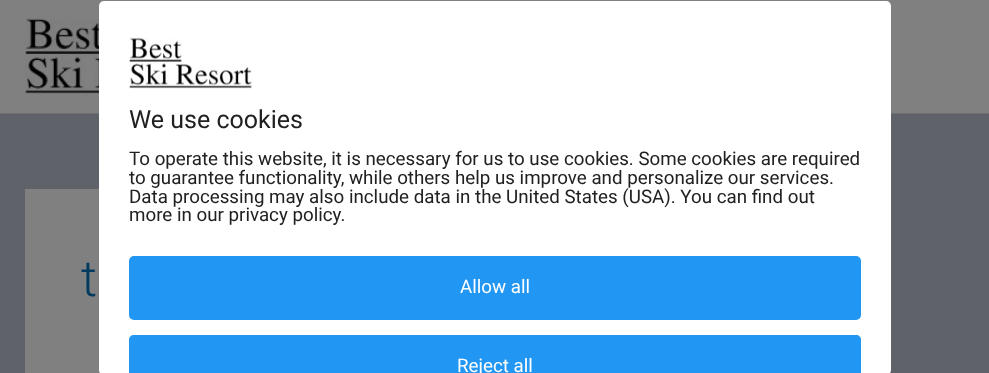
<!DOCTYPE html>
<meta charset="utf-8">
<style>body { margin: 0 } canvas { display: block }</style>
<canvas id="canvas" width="989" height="373"></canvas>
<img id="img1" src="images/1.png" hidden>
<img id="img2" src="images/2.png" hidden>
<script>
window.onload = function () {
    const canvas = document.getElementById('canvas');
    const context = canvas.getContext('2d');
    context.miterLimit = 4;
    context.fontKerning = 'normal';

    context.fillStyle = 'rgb(95, 99, 105)';
    context.fillRect(0, 0, 989, 373);
    context.fillStyle = 'rgb(128, 128, 128)';
    context.fillRect(0, 0, 989, 113);
    context.fillStyle = 'rgb(111, 111, 111)';
    context.fillRect(0, 113, 989, 1);
    context.drawImage(document.getElementById('img1'), 25, 18, 74, 76);
    context.fillStyle = 'rgb(128, 128, 128)';
    context.fillRect(25, 189, 75, 184);
    context.fillStyle = 'rgb(255, 255, 255)';
    context.beginPath();
    context.roundRect(99, 1, 792, 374, 5);
    context.fill();
    context.drawImage(document.getElementById('img2'), 129, 37, 123, 52);
    context.fillStyle = 'rgb(33, 150, 243)';
    context.beginPath();
    context.roundRect(129, 256, 732, 64, 5);
    context.fill();
    context.beginPath();
    context.moveTo(134, 335);
    context.lineTo(856, 335);
    context.bezierCurveTo(859, 335, 861, 337, 861, 340);
    context.lineTo(861, 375);
    context.lineTo(129, 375);
    context.lineTo(129, 340);
    context.bezierCurveTo(129, 337, 131, 335, 134, 335);
    context.closePath();
    context.fill();
    context.font = '300 50px Roboto';
    context.fillStyle = 'rgb(1, 58, 95)';
    context.fillText('t', 81, 296);
    context.font = '25px Roboto';
    context.fillStyle = 'rgb(33, 33, 33)';
    context.fillText('We use cookies', 129, 128);
    context.font = '18.75px Roboto';
    context.fillText('To operate this website, it is necessary for us to use cookies. Some cookies are required', 129, 165);
    context.fillText('to guarantee functionality, while others help us improve and personalize our services.', 129, 184);
    context.fillText('Data processing may also include data in the United States (USA). You can find out', 129, 203);
    context.fillText('more in our privacy policy.', 129, 221);
    context.fillStyle = 'rgb(255, 255, 255)';
    context.fillText('Allow all', 460, 293);
    context.fillText('Reject all', 457, 372);
};
</script>
